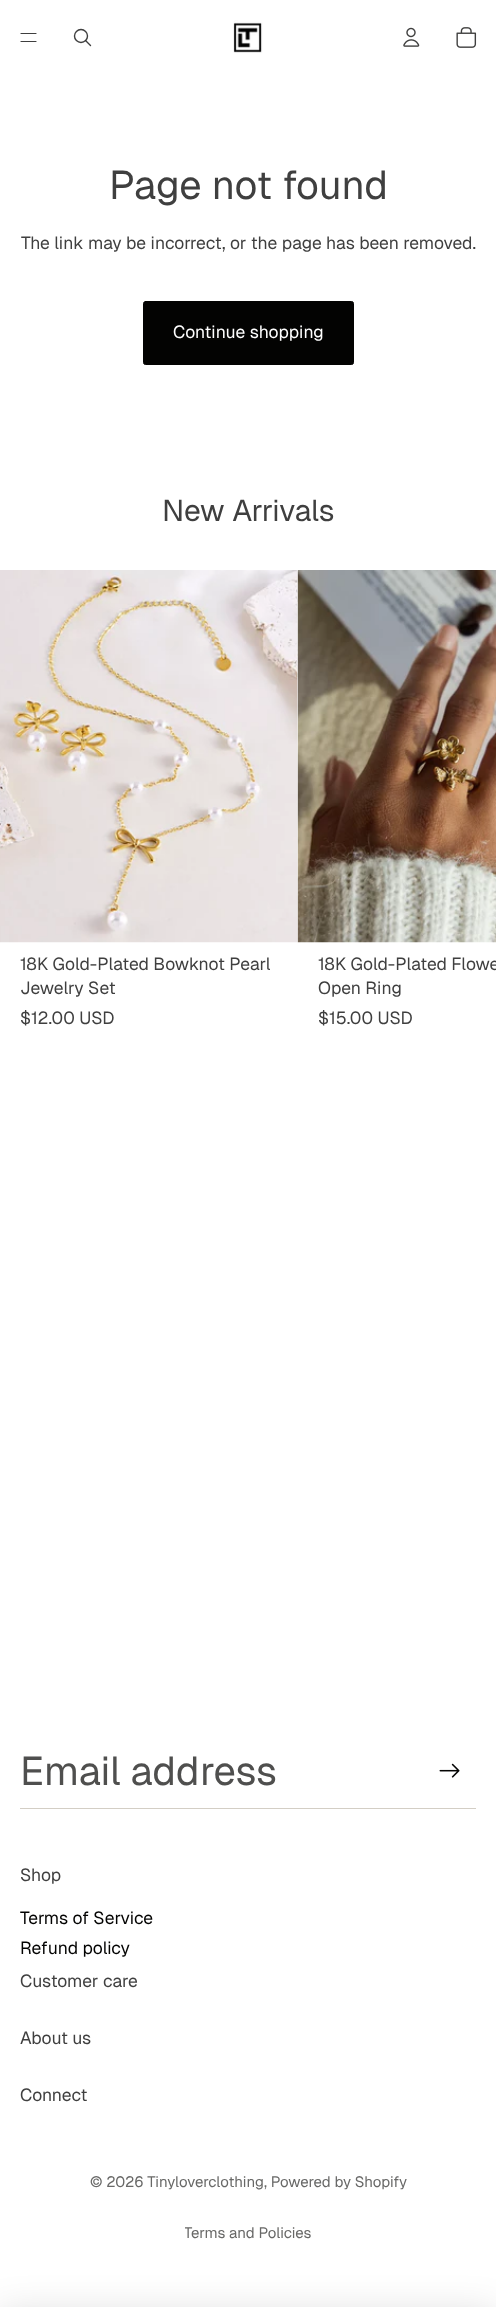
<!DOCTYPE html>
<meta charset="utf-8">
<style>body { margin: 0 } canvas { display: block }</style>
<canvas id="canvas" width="496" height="2307"></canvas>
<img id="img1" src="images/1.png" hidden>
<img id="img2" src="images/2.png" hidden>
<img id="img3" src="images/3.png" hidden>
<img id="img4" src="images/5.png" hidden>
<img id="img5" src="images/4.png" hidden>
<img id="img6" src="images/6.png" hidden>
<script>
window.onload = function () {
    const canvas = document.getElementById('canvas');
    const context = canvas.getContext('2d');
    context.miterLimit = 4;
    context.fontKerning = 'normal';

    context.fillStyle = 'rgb(255, 255, 255)';
    context.fillRect(0, 0, 496, 2307);
    context.beginPath();
    context.moveTo(21, 33.5);
    context.lineTo(36, 33.5);
    context.moveTo(21, 41.5);
    context.lineTo(36, 41.5);
    context.strokeStyle = 'rgb(63, 63, 63)';
    context.lineWidth = 1.2;
    context.lineCap = 'round';
    context.stroke();
    context.beginPath();
    context.arc(81, 36, 6.5, 0, 2 * Math.PI);
    context.lineWidth = 1.4;
    context.stroke();
    context.beginPath();
    context.moveTo(86, 41);
    context.lineTo(90.5, 45.5);
    context.strokeStyle = 'rgba(3, 3, 2, 0.76)';
    context.lineJoin = 'round';
    context.stroke();
    context.drawImage(document.getElementById('img1'), 233, 20, 30, 33);
    context.drawImage(document.getElementById('img2'), 403, 27, 17, 20);
    context.drawImage(document.getElementById('img3'), 456, 27, 21, 21);
    context.fillStyle = 'rgb(3, 3, 2)';
    context.beginPath();
    context.roundRect(143.5, 301.5, 210, 63, 2);
    context.fill();
    context.strokeStyle = 'rgb(3, 3, 2)';
    context.lineWidth = 1;
    context.lineJoin = 'miter';
    context.stroke();
    context.drawImage(document.getElementById('img4'), 297, 570, 199, 373);
    context.drawImage(document.getElementById('img5'), 0, 570, 298, 373);
    context.fillStyle = 'rgb(211, 206, 197)';
    context.fillRect(20, 1808, 456, 1);
    context.drawImage(document.getElementById('img6'), 439, 1763, 21, 15);
    context.fillStyle = 'rgba(0, 0, 0, 0.15)';
    context.filter = 'blur(19px)';
    context.beginPath();
    context.rect(0, 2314, 496, 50);
    context.fill();
    context.filter = 'none';
    context.font = '40px Geist';
    context.fillStyle = 'rgb(63, 63, 63)';
    context.fillText('Page not found', 109, 199);
    context.font = '17.5px Geist';
    context.fillText('The link may be incorrect, or the page has been removed.', 21, 249);
    context.fillStyle = 'rgb(255, 255, 255)';
    context.fillText('Continue shopping', 173, 338);
    context.font = '30px Geist';
    context.fillStyle = 'rgb(63, 63, 63)';
    context.fillText('New Arrivals', 162, 521);
    context.font = '17.5px Geist';
    context.fillText('18K Gold-Plated Bowknot Pearl', 20, 970);
    context.fillText('Jewelry Set', 20, 994);
    context.fillText('$12.00 USD', 20, 1024);
    context.fillText('18K Gold-Plated Flowe', 318, 970);
    context.fillText('Open Ring', 318, 994);
    context.fillText('$15.00 USD', 318, 1024);
    context.font = '40px Geist';
    context.fillStyle = 'rgb(79, 79, 78)';
    context.fillText('Email address', 20, 1785);
    context.font = '17.5px Geist';
    context.fillStyle = 'rgb(63, 63, 63)';
    context.fillText('Shop', 20, 1881);
    context.fillStyle = 'rgb(3, 3, 2)';
    context.fillText('Terms of Service', 20, 1924);
    context.fillText('Refund policy', 20, 1954);
    context.fillStyle = 'rgb(63, 63, 63)';
    context.fillText('Customer care', 20, 1987);
    context.fillText('About us', 20, 2044);
    context.fillText('Connect', 20, 2101);
    context.font = '15px Geist';
    context.fillStyle = 'rgb(104, 104, 103)';
    context.fillText('© 2026 Tinyloverclothing, Powered by Shopify', 90, 2187);
    context.save();
    context.beginPath();
    context.rect(185, 2223, 126, 20);
    context.clip();
    context.fillText('Terms and Policies', 184, 2238);
    context.restore();
};
</script>
